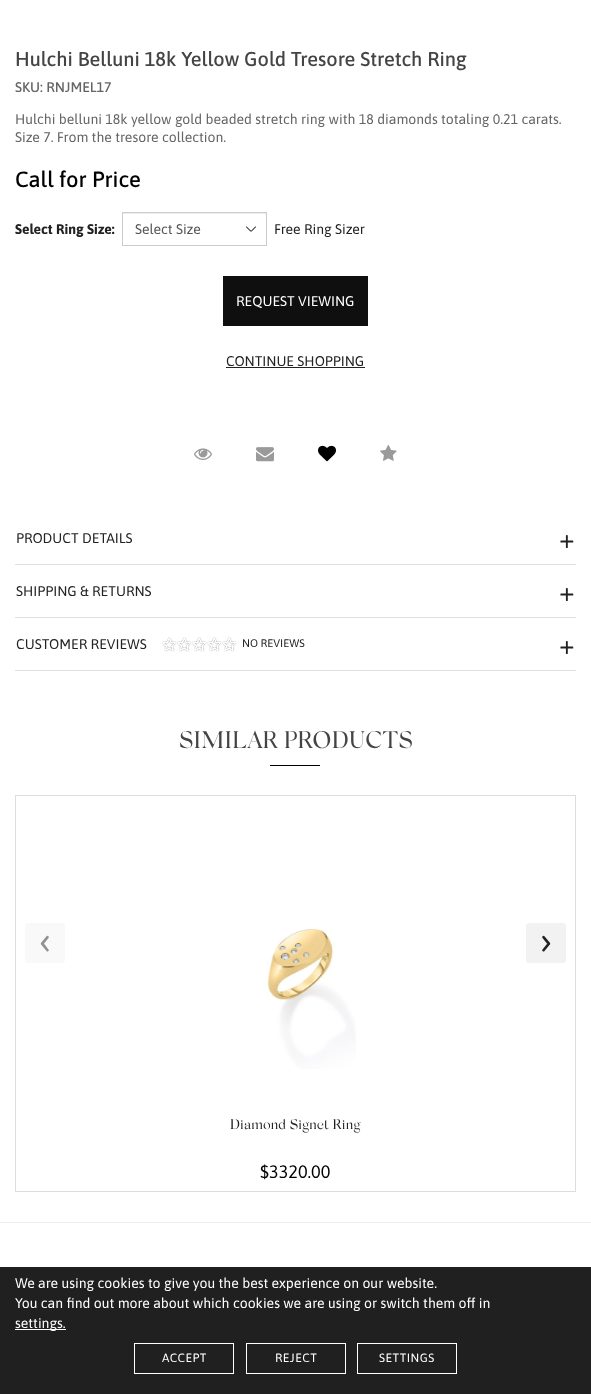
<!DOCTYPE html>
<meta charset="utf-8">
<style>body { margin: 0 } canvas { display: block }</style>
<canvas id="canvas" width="591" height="1394"></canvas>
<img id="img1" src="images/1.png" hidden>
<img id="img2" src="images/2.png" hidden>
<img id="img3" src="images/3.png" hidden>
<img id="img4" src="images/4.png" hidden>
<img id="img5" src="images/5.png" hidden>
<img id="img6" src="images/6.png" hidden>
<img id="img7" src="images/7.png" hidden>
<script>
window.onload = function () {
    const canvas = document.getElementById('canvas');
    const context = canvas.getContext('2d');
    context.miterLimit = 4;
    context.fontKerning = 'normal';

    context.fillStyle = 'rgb(255, 255, 255)';
    context.fillRect(0, 0, 591, 1394);
    context.drawImage(document.getElementById('img1'), 246, 226, 10, 6);
    context.fillStyle = 'rgb(236, 236, 236)';
    context.fillRect(123, 213, 143, 1);
    context.strokeStyle = 'rgb(204, 204, 204)';
    context.strokeRect(122.5, 212.5, 144, 33);
    context.fillStyle = 'rgb(15, 15, 15)';
    context.fillRect(223, 276, 145, 50);
    context.fillStyle = 'rgb(34, 34, 34)';
    context.fillRect(226, 367, 139, 1);
    context.drawImage(document.getElementById('img2'), 194, 448, 18, 12);
    context.drawImage(document.getElementById('img3'), 256, 447, 18, 15);
    context.drawImage(document.getElementById('img4'), 318, 445, 18, 17);
    context.drawImage(document.getElementById('img5'), 380, 445, 17, 16);
    context.fillStyle = 'rgb(223, 223, 223)';
    context.fillRect(15, 564, 561, 1);
    context.fillRect(15, 617, 561, 1);
    context.fillRect(15, 670, 561, 1);
    context.drawImage(document.getElementById('img6'), 162, 637, 75, 15);
    context.fillStyle = 'rgb(0, 0, 0)';
    context.fillRect(270, 765, 50, 1);
    context.strokeStyle = 'rgb(221, 221, 221)';
    context.strokeRect(15.5, 795.5, 560, 396);
    context.fillStyle = 'rgb(249, 249, 249)';
    context.beginPath();
    context.roundRect(25, 923, 40, 40, 3);
    context.fill();
    context.fillStyle = 'rgb(242, 242, 242)';
    context.beginPath();
    context.roundRect(526, 923, 40, 40, 3);
    context.fill();
    context.drawImage(document.getElementById('img7'), 267, 929, 89, 140);
    context.fillStyle = 'rgb(238, 238, 238)';
    context.fillRect(0, 1222, 591, 1);
    context.fillStyle = 'rgb(32, 32, 32)';
    context.fillRect(0, 1267, 591, 127);
    context.fillStyle = 'rgb(255, 255, 255)';
    context.fillRect(15, 1329, 51, 1);
    context.strokeStyle = 'rgb(255, 255, 255)';
    context.strokeRect(134.5, 1343.5, 99, 30);
    context.strokeRect(246.5, 1343.5, 99, 30);
    context.strokeRect(357.5, 1343.5, 99, 30);
    context.font = '500 20px Asap';
    context.fillStyle = 'rgb(68, 68, 68)';
    context.fillText('Hulchi Belluni 18k Yellow Gold Tresore Stretch Ring', 15, 66);
    context.font = '500 14px Asap';
    context.fillStyle = 'rgb(101, 101, 101)';
    context.fillText('SKU: RNJMEL17', 15, 92);
    context.font = '14px Asap';
    context.fillText('Hulchi belluni 18k yellow gold beaded stretch ring with 18 diamonds totaling 0.21 carats.', 15, 124);
    context.fillText('Size 7. From the tresore collection.', 15, 142);
    context.font = '500 22px Asap';
    context.fillStyle = 'rgb(0, 0, 0)';
    context.fillText('Call for Price', 15, 187);
    context.font = 'bold 14px Asap';
    context.fillStyle = 'rgb(34, 34, 34)';
    context.fillText('Select Ring Size:', 15, 234);
    context.font = '14px Asap';
    context.fillStyle = 'rgb(85, 85, 85)';
    context.fillText('Select Size', 135, 234);
    context.fillStyle = 'rgb(34, 34, 34)';
    context.fillText('Free Ring Sizer', 274, 234);
    context.fillStyle = 'rgb(255, 255, 255)';
    context.fillText('REQUEST VIEWING', 236, 306);
    context.fillStyle = 'rgb(34, 34, 34)';
    context.fillText('CONTINUE SHOPPING', 226, 366);
    context.fillText('PRODUCT DETAILS', 16, 543);
    context.font = '28px Asap';
    context.fillText('+', 559, 548);
    context.font = '14px Asap';
    context.fillText('SHIPPING & RETURNS', 16, 596);
    context.font = '28px Asap';
    context.fillText('+', 559, 601);
    context.font = '14px Asap';
    context.fillText('CUSTOMER REVIEWS', 16, 649);
    context.font = '11px Asap';
    context.fillText('NO REVIEWS', 242, 647);
    context.font = '28px Asap';
    context.fillText('+', 559, 654);
    context.font = '24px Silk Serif';
    context.fillStyle = 'rgb(68, 68, 68)';
    context.fillText('SIMILAR PRODUCTS', 179, 748);
    context.font = '40px Asap';
    context.fillStyle = 'rgb(145, 145, 145)';
    context.fillText('‹', 39, 954);
    context.fillStyle = 'rgb(34, 34, 34)';
    context.fillText('›', 540, 954);
    context.font = '14px Silk Serif';
    context.fillText('Diamond Signet Ring', 230, 1129);
    context.font = '18px Asap';
    context.fillStyle = 'rgb(0, 0, 0)';
    context.fillText('$3320.00', 260, 1178);
    context.font = '14px Asap';
    context.fillStyle = 'rgb(255, 255, 255)';
    context.fillText('We are using cookies to give you the best experience on our website.', 15, 1288);
    context.fillText('You can find out more about which cookies we are using or switch them off in', 15, 1308);
    context.fillText('settings.', 15, 1328);
    context.letterSpacing = '0.5px';
    context.font = '12px Asap';
    context.fillText('ACCEPT', 162, 1362);
    context.fillText('REJECT', 275, 1362);
    context.fillText('SETTINGS', 379, 1362);
};
</script>
